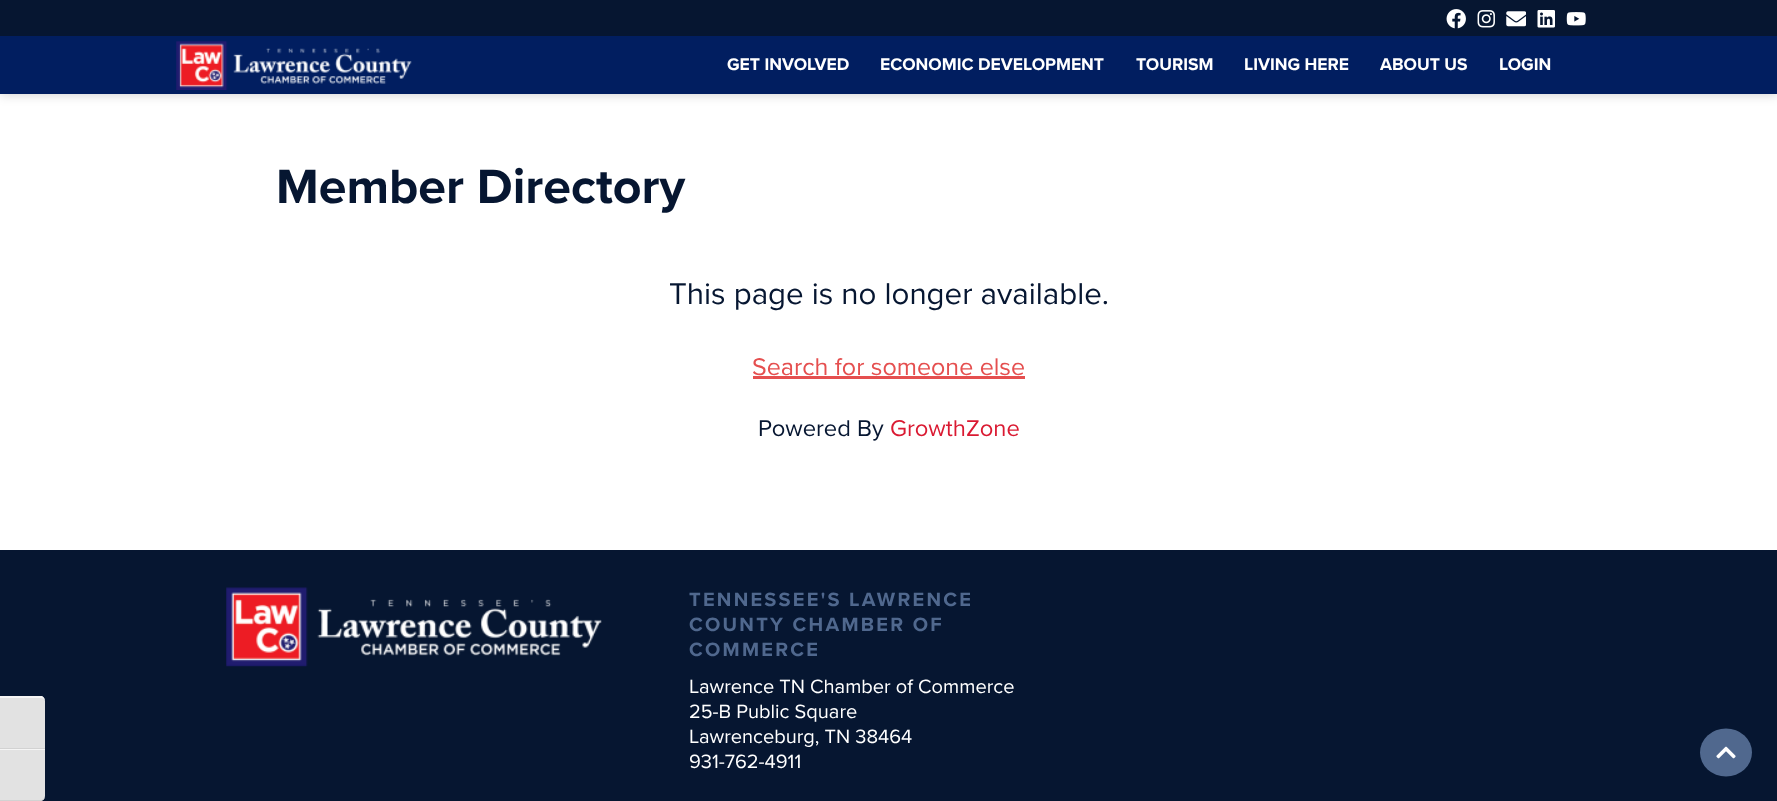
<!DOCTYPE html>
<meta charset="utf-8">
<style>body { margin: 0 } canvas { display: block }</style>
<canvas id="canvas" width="1777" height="801"></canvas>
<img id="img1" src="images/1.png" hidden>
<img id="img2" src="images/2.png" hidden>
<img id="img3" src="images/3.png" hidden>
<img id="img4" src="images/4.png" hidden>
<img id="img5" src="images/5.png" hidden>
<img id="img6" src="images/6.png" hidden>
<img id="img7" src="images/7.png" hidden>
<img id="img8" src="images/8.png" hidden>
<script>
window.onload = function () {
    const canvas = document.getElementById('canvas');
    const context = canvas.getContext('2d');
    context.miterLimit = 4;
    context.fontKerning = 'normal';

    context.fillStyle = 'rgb(255, 255, 255)';
    context.fillRect(0, 0, 1777, 801);
    context.fillStyle = 'rgba(0, 0, 0, 0.2)';
    context.filter = 'blur(6px)';
    context.beginPath();
    context.rect(0, 0, 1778, 94);
    context.fill();
    context.filter = 'none';
    context.fillStyle = 'rgb(1, 30, 96)';
    context.fillRect(0, 36, 1777, 58);
    context.fillStyle = 'rgb(6, 22, 49)';
    context.fillRect(0, 0, 1777, 36);
    context.drawImage(document.getElementById('img1'), 1446, 9, 20, 20);
    context.drawImage(document.getElementById('img2'), 1477, 10, 18, 18);
    context.drawImage(document.getElementById('img3'), 1506, 11, 20, 16);
    context.drawImage(document.getElementById('img4'), 1537, 10, 18, 18);
    context.drawImage(document.getElementById('img5'), 1566, 12, 20, 14);
    context.drawImage(document.getElementById('img6'), 176, 41, 236, 49);
    context.fillStyle = 'rgb(229, 79, 79)';
    context.fillRect(753, 376, 272, 3);
    context.fillStyle = 'rgb(6, 22, 49)';
    context.fillRect(0, 550, 1777, 251);
    context.fillStyle = 'rgb(226, 226, 226)';
    context.beginPath();
    context.roundRect(0, 696, 45, 53, [0, 5, 0, 0]);
    context.fill();
    context.fillStyle = 'rgb(245, 245, 245)';
    context.beginPath();
    context.moveTo(0, 698);
    context.lineTo(40, 698);
    context.bezierCurveTo(43, 698, 45, 699, 45, 701);
    context.bezierCurveTo(45, 699, 44, 697, 42, 696);
    context.lineTo(0, 696);
    context.closePath();
    context.fill();
    context.fillStyle = 'rgb(210, 210, 210)';
    context.fillRect(0, 748, 45, 1);
    context.fillStyle = 'rgb(226, 226, 226)';
    context.beginPath();
    context.roundRect(0, 749, 45, 52, [0, 0, 5, 0]);
    context.fill();
    context.fillStyle = 'rgb(245, 245, 245)';
    context.fillRect(0, 749, 45, 1);
    context.fillStyle = 'rgb(210, 210, 210)';
    context.beginPath();
    context.moveTo(0, 800);
    context.lineTo(0, 801);
    context.lineTo(40, 801);
    context.bezierCurveTo(43, 801, 45, 799, 45, 796);
    context.bezierCurveTo(45, 798, 43, 800, 40, 800);
    context.closePath();
    context.fill();
    context.drawImage(document.getElementById('img7'), 226, 587, 376, 80);
    context.fillStyle = 'rgb(80, 104, 142)';
    context.beginPath();
    context.ellipse(1726, 752.5, 26, 24, 0, 0, 2 * Math.PI);
    context.fill();
    context.drawImage(document.getElementById('img8'), 1716, 746, 20, 13);
    context.font = 'bold 17.5px Proxima Nova';
    context.fillStyle = 'rgb(255, 255, 255)';
    context.fillText('GET INVOLVED', 727, 70);
    context.fillText('ECONOMIC DEVELOPMENT', 880, 70);
    context.fillText('TOURISM', 1136, 70);
    context.fillText('LIVING HERE', 1244, 70);
    context.fillText('ABOUT US', 1380, 70);
    context.fillText('LOGIN', 1499, 70);
    context.font = 'bold 50px Proxima Nova';
    context.fillStyle = 'rgb(6, 22, 49)';
    context.fillText('Member Directory', 276, 203);
    context.font = '31.25px Proxima Nova';
    context.fillText('This page is no longer available.', 669, 304);
    context.font = '25px Proxima Nova';
    context.fillStyle = 'rgb(229, 79, 79)';
    context.fillText('Search for someone else', 752, 375);
    context.font = '23.75px Proxima Nova';
    context.fillStyle = 'rgb(6, 22, 49)';
    context.fillText('Powered By', 758, 436);
    context.fillStyle = 'rgb(218, 26, 50)';
    context.fillText('GrowthZone', 890, 436);
    context.letterSpacing = '2.25px';
    context.font = 'bold 20px Proxima Nova';
    context.fillStyle = 'rgb(80, 104, 142)';
    context.fillText('TENNESSEE\'S LAWRENCE', 689, 606);
    context.fillText('COUNTY CHAMBER OF', 689, 631);
    context.fillText('COMMERCE', 689, 656);
    context.letterSpacing = '0px';
    context.font = '20px Proxima Nova';
    context.fillStyle = 'rgb(255, 255, 255)';
    context.fillText('Lawrence TN Chamber of Commerce', 689, 693);
    context.fillText('25-B Public Square', 689, 718);
    context.fillText('Lawrenceburg, TN 38464', 689, 743);
    context.fillText('931-762-4911', 689, 768);
};
</script>
